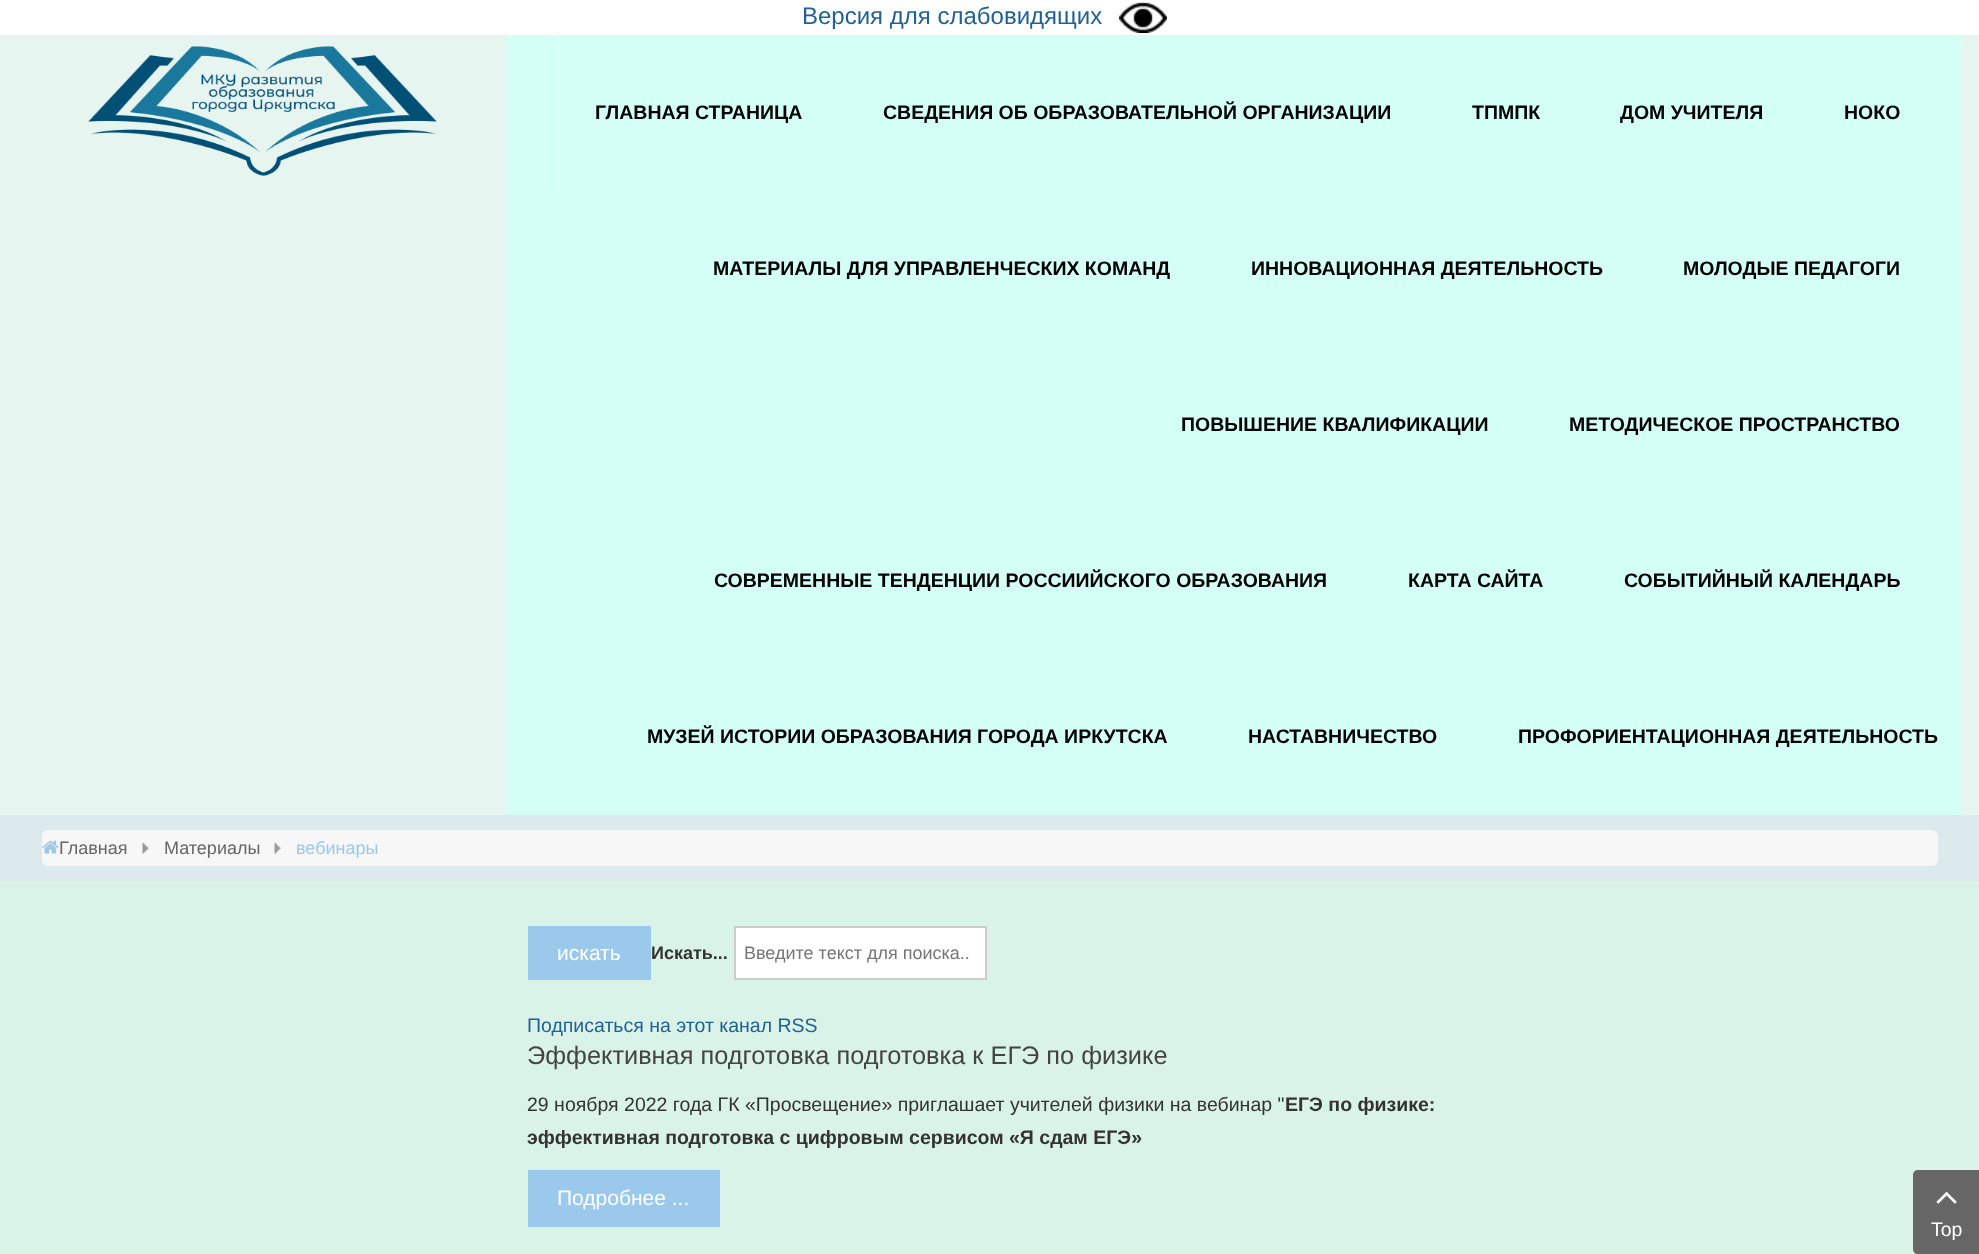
<!DOCTYPE html>
<meta charset="utf-8">
<style>body { margin: 0 } canvas { display: block }</style>
<canvas id="canvas" width="1979" height="1254"></canvas>
<img id="img1" src="images/1.png" hidden>
<img id="img2" src="images/2.png" hidden>
<img id="img3" src="images/3.png" hidden>
<img id="img4" src="images/4.png" hidden>
<img id="img5" src="images/5.png" hidden>
<script>
window.onload = function () {
    const canvas = document.getElementById('canvas');
    const context = canvas.getContext('2d');
    context.miterLimit = 4;
    context.fontKerning = 'normal';

    context.fillStyle = 'rgb(255, 255, 255)';
    context.fillRect(0, 0, 1979, 1254);
    context.drawImage(document.getElementById('img1'), 1119, 1, 48, 32);
    context.fillStyle = 'rgb(217, 243, 232)';
    context.fillRect(0, 881, 1979, 373);
    context.fillStyle = 'rgb(231, 245, 241)';
    context.fillRect(0, 35, 1979, 780);
    context.drawImage(document.getElementById('img2'), 88, 46, 349, 130);
    context.fillStyle = 'rgb(211, 255, 247)';
    context.fillRect(506, 35, 1455, 780);
    context.fillStyle = 'rgb(220, 255, 249)';
    context.fillRect(557, 35, 2, 156);
    context.fillStyle = 'rgb(221, 234, 237)';
    context.fillRect(0, 815, 1979, 66);
    context.fillStyle = 'rgb(247, 247, 247)';
    context.beginPath();
    context.roundRect(42, 830, 1896, 36, 6);
    context.fill();
    context.drawImage(document.getElementById('img3'), 42, 840, 17, 14);
    context.drawImage(document.getElementById('img4'), 142, 843, 7, 11);
    context.drawImage(document.getElementById('img4'), 274, 843, 7, 11);
    context.fillStyle = 'rgb(154, 201, 236)';
    context.fillRect(528, 926, 123, 54);
    context.fillStyle = 'rgb(255, 255, 255)';
    context.beginPath();
    context.rect(735, 927, 251, 52);
    context.fill();
    context.strokeStyle = 'rgb(204, 204, 204)';
    context.lineWidth = 2;
    context.stroke();
    context.fillStyle = 'rgb(154, 201, 236)';
    context.fillRect(528, 1170, 192, 57);
    context.fillStyle = 'rgb(102, 102, 102)';
    context.beginPath();
    context.moveTo(1918, 1170);
    context.lineTo(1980, 1170);
    context.lineTo(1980, 1254);
    context.lineTo(1918, 1254);
    context.bezierCurveTo(1915, 1254, 1913, 1252, 1913, 1249);
    context.lineTo(1913, 1175);
    context.bezierCurveTo(1913, 1172, 1915, 1170, 1918, 1170);
    context.closePath();
    context.fill();
    context.drawImage(document.getElementById('img5'), 1936, 1192, 21, 12);
    context.font = '24px Liberation Sans';
    context.fillStyle = 'rgb(34, 98, 146)';
    context.fillText('Версия для слабовидящих', 802, 24);
    context.font = 'bold 19.5px Liberation Sans';
    context.fillStyle = 'rgb(0, 0, 0)';
    context.fillText('ГЛАВНАЯ СТРАНИЦА', 595, 119);
    context.fillText('СВЕДЕНИЯ ОБ ОБРАЗОВАТЕЛЬНОЙ ОРГАНИЗАЦИИ', 883, 119);
    context.fillText('ТПМПК', 1472, 119);
    context.fillText('ДОМ УЧИТЕЛЯ', 1620, 119);
    context.fillText('НОКО', 1844, 119);
    context.fillText('МАТЕРИАЛЫ ДЛЯ УПРАВЛЕНЧЕСКИХ КОМАНД', 713, 275);
    context.fillText('ИННОВАЦИОННАЯ ДЕЯТЕЛЬНОСТЬ', 1251, 275);
    context.fillText('МОЛОДЫЕ ПЕДАГОГИ', 1683, 275);
    context.fillText('ПОВЫШЕНИЕ КВАЛИФИКАЦИИ', 1181, 431);
    context.fillText('МЕТОДИЧЕСКОЕ ПРОСТРАНСТВО', 1569, 431);
    context.fillText('СОВРЕМЕННЫЕ ТЕНДЕНЦИИ РОССИИЙСКОГО ОБРАЗОВАНИЯ', 714, 587);
    context.fillText('КАРТА САЙТА', 1408, 587);
    context.fillText('СОБЫТИЙНЫЙ КАЛЕНДАРЬ', 1624, 587);
    context.fillText('МУЗЕЙ ИСТОРИИ ОБРАЗОВАНИЯ ГОРОДА ИРКУТСКА', 647, 743);
    context.fillText('НАСТАВНИЧЕСТВО', 1248, 743);
    context.fillText('ПРОФОРИЕНТАЦИОННАЯ ДЕЯТЕЛЬНОСТЬ', 1518, 743);
    context.font = '18px Liberation Sans';
    context.fillStyle = 'rgb(102, 102, 102)';
    context.fillText('Главная', 59, 854);
    context.fillText('Материалы', 164, 854);
    context.fillStyle = 'rgb(154, 201, 236)';
    context.fillText('вебинары', 296, 854);
    context.font = '21px Liberation Sans';
    context.fillStyle = 'rgb(255, 255, 255)';
    context.fillText('искать', 557, 960);
    context.font = 'bold 18px Liberation Sans';
    context.fillStyle = 'rgb(51, 51, 51)';
    context.fillText('Искать...', 651, 959);
    context.font = '18px Liberation Sans';
    context.fillStyle = 'rgb(117, 117, 117)';
    context.fillText('Введите текст для поиска..', 744, 959);
    context.font = '19.5px Liberation Sans';
    context.fillStyle = 'rgb(34, 98, 146)';
    context.fillText('Подписаться на этот канал RSS', 527, 1032);
    context.font = '25.35px Liberation Sans';
    context.fillStyle = 'rgb(68, 68, 68)';
    context.fillText('Эффективная подготовка подготовка к ЕГЭ по физике', 527, 1064);
    context.font = '19.5px Liberation Sans';
    context.fillStyle = 'rgb(51, 51, 51)';
    context.fillText('29 ноября 2022 года ГК «Просвещение» приглашает учителей физики на вебинар "', 527, 1111);
    context.font = 'bold 19.5px Liberation Sans';
    context.fillText('ЕГЭ по физике:', 1285, 1111);
    context.fillText('эффективная подготовка с цифровым сервисом «Я сдам ЕГЭ»', 527, 1144);
    context.font = '21px Liberation Sans';
    context.fillStyle = 'rgb(255, 255, 255)';
    context.fillText('Подробнее ...', 557, 1205);
    context.font = '19.5px Liberation Sans';
    context.fillText('Top', 1931, 1236);
};
</script>
